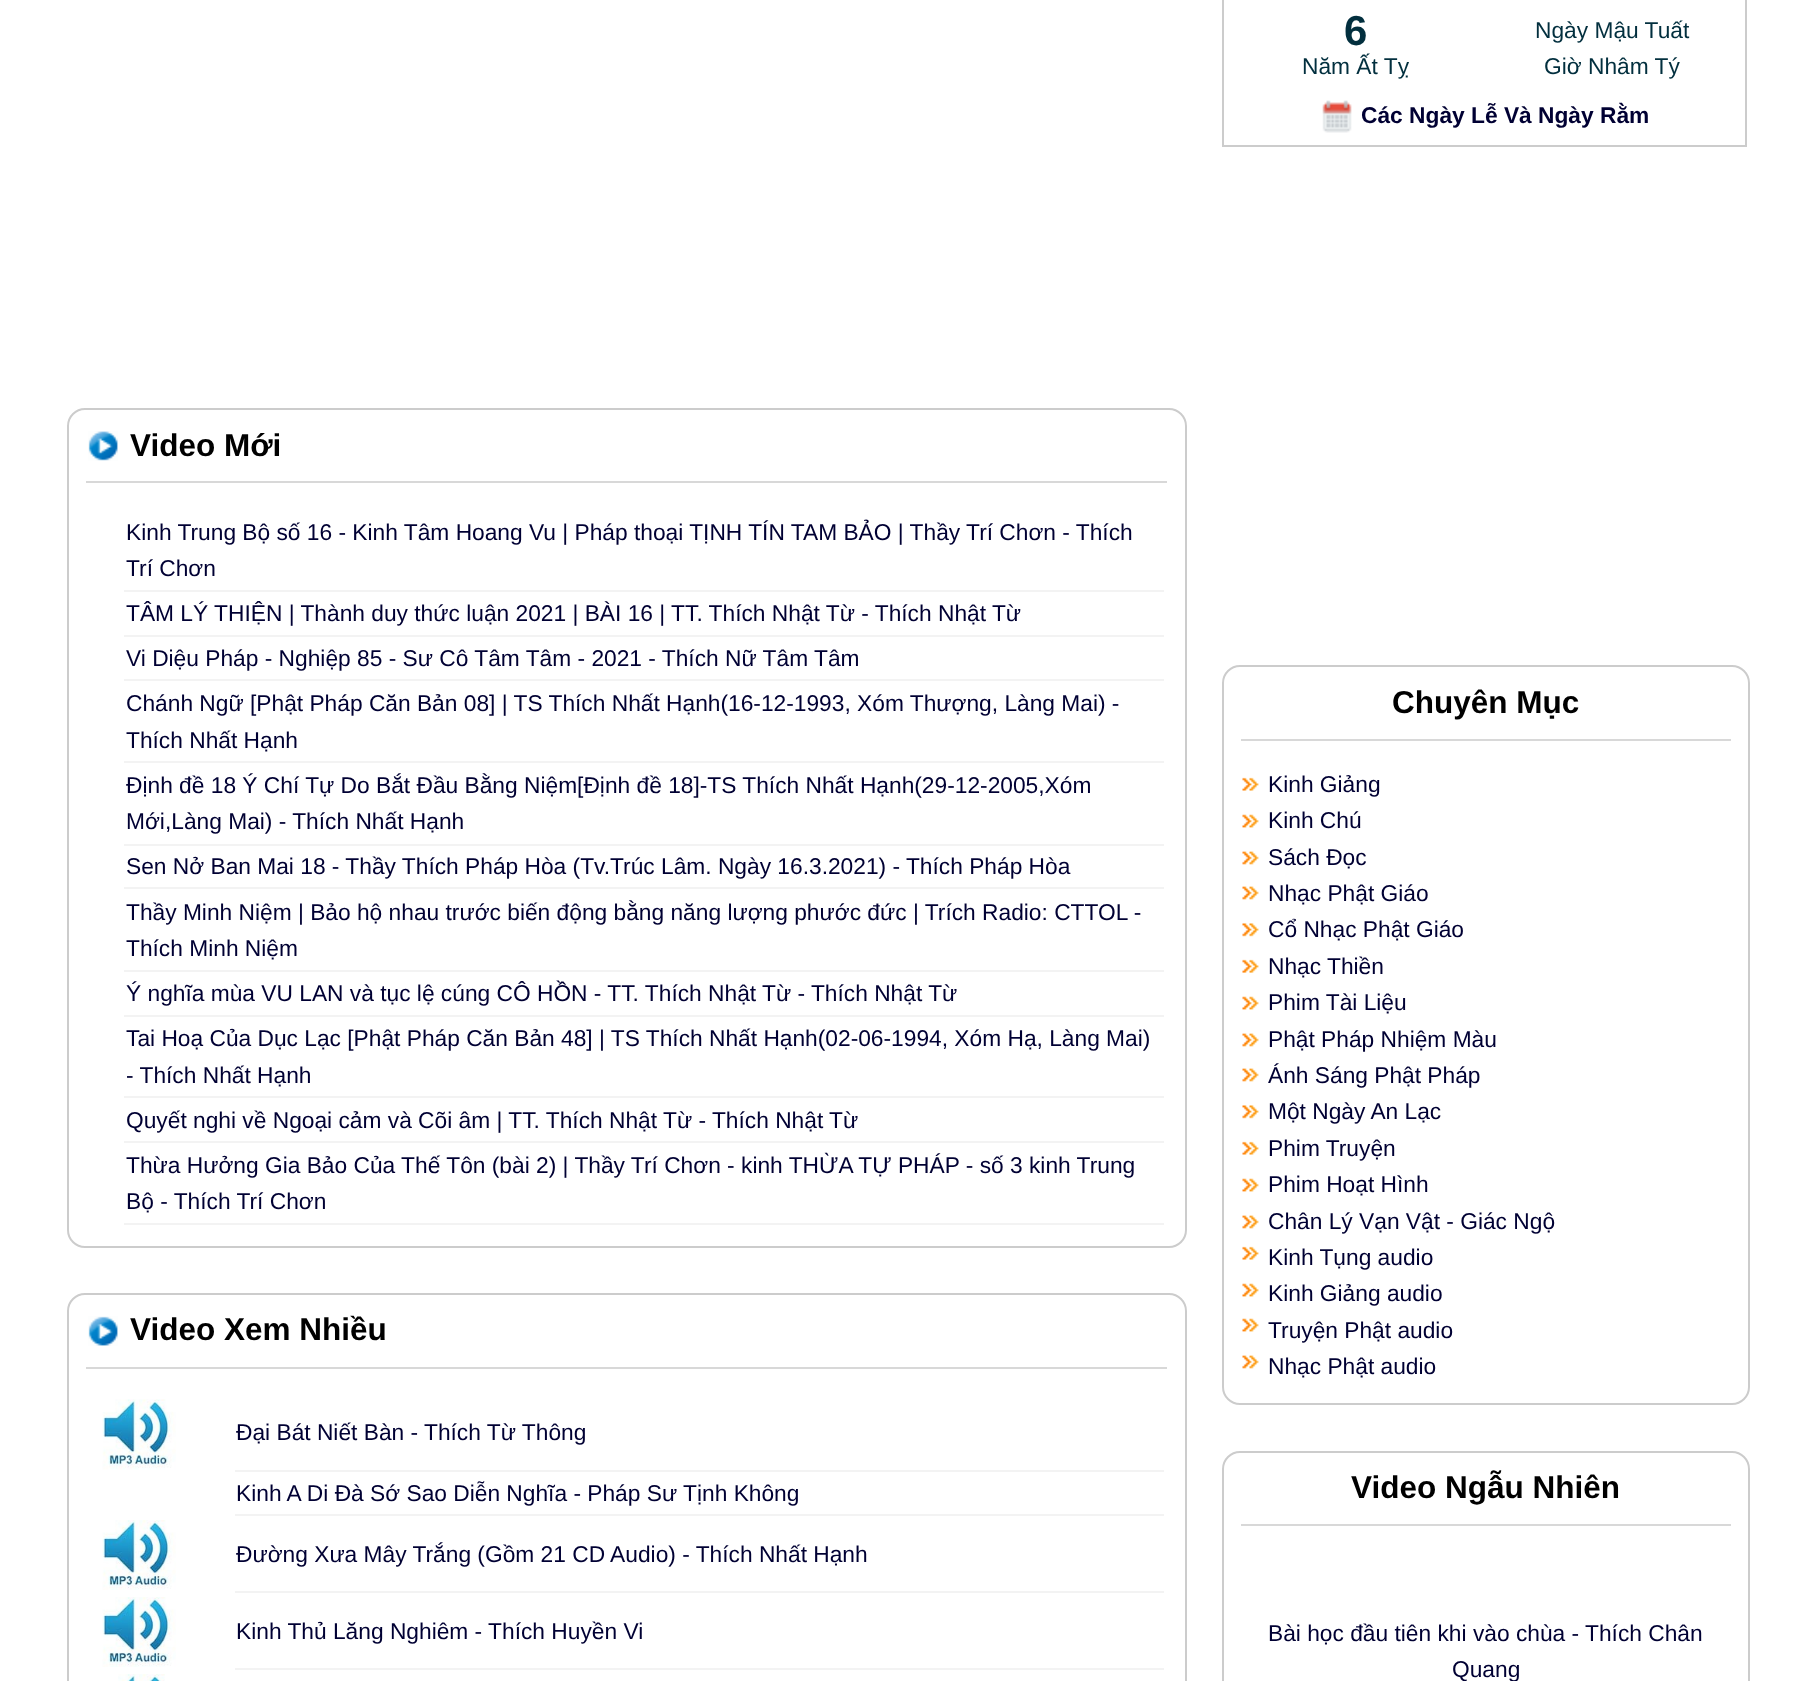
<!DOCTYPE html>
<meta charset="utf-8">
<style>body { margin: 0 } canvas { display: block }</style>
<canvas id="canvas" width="1812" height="1681"></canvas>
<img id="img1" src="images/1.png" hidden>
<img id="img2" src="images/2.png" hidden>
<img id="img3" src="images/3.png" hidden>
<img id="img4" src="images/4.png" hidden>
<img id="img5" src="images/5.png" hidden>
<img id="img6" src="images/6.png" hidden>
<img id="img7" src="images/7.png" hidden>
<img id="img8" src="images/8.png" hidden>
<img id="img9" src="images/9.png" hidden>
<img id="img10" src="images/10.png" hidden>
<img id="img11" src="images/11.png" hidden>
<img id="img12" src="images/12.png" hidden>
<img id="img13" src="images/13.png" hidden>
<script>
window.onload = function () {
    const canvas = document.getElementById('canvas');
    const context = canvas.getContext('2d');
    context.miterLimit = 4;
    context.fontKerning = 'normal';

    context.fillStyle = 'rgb(255, 255, 255)';
    context.fillRect(0, 0, 1812, 1681);
    context.beginPath();
    context.roundRect(68, 409, 1118, 838, 17);
    context.strokeStyle = 'rgb(204, 204, 204)';
    context.lineWidth = 2;
    context.stroke();
    context.fillStyle = 'rgb(216, 216, 216)';
    context.fillRect(86, 481, 1081, 2);
    context.drawImage(document.getElementById('img1'), 88, 431, 30, 30);
    context.fillStyle = 'rgb(243, 243, 243)';
    context.fillRect(124, 590, 1040, 2);
    context.fillRect(124, 635, 1040, 2);
    context.fillRect(124, 679, 1040, 2);
    context.fillRect(124, 761, 1040, 2);
    context.fillRect(124, 844, 1040, 2);
    context.fillRect(124, 887, 1040, 2);
    context.fillRect(124, 970, 1040, 2);
    context.fillRect(124, 1015, 1040, 2);
    context.fillRect(124, 1096, 1040, 2);
    context.fillRect(124, 1141, 1040, 2);
    context.fillRect(124, 1223, 1040, 2);
    context.beginPath();
    context.roundRect(68, 1294, 1118, 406, 17);
    context.stroke();
    context.fillStyle = 'rgb(216, 216, 216)';
    context.fillRect(86, 1367, 1081, 2);
    context.drawImage(document.getElementById('img2'), 88, 1316, 30, 30);
    context.drawImage(document.getElementById('img3'), 102, 1399, 74, 71);
    context.fillStyle = 'rgb(243, 243, 243)';
    context.fillRect(235, 1470, 929, 2);
    context.fillRect(235, 1514, 929, 2);
    context.drawImage(document.getElementById('img4'), 102, 1520, 74, 70);
    context.fillRect(235, 1591, 929, 2);
    context.drawImage(document.getElementById('img5'), 102, 1597, 74, 70);
    context.fillRect(235, 1668, 929, 2);
    context.drawImage(document.getElementById('img6'), 118, 1674, 47, 7);
    context.strokeRect(1223, -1, 523, 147);
    context.drawImage(document.getElementById('img7'), 1322, 100, 30, 33);
    context.beginPath();
    context.roundRect(1223, 666, 526, 738, 17);
    context.stroke();
    context.fillStyle = 'rgb(216, 216, 216)';
    context.fillRect(1241, 739, 490, 2);
    context.drawImage(document.getElementById('img8'), 1242, 777, 17, 14);
    context.drawImage(document.getElementById('img9'), 1242, 814, 17, 14);
    context.drawImage(document.getElementById('img10'), 1242, 851, 17, 14);
    context.drawImage(document.getElementById('img11'), 1242, 886, 17, 14);
    context.drawImage(document.getElementById('img12'), 1242, 923, 17, 14);
    context.drawImage(document.getElementById('img13'), 1242, 959, 17, 14);
    context.drawImage(document.getElementById('img9'), 1242, 996, 17, 14);
    context.drawImage(document.getElementById('img10'), 1242, 1033, 17, 14);
    context.drawImage(document.getElementById('img10'), 1242, 1068, 17, 14);
    context.drawImage(document.getElementById('img12'), 1242, 1105, 17, 14);
    context.drawImage(document.getElementById('img8'), 1242, 1141, 17, 14);
    context.drawImage(document.getElementById('img9'), 1242, 1178, 17, 14);
    context.drawImage(document.getElementById('img10'), 1242, 1215, 17, 14);
    context.drawImage(document.getElementById('img8'), 1242, 1246, 17, 14);
    context.drawImage(document.getElementById('img9'), 1242, 1283, 17, 14);
    context.drawImage(document.getElementById('img9'), 1242, 1318, 17, 14);
    context.drawImage(document.getElementById('img10'), 1242, 1355, 17, 14);
    context.beginPath();
    context.roundRect(1223, 1452, 526, 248, 17);
    context.stroke();
    context.fillRect(1241, 1524, 490, 2);
    context.font = 'bold 31.5px Liberation Sans';
    context.fillStyle = 'rgb(0, 0, 0)';
    context.fillText('Video Mới', 130, 456);
    context.font = '22.75px Liberation Sans';
    context.fillStyle = 'rgb(0, 0, 51)';
    context.fillText('Kinh Trung Bộ số 16 - Kinh Tâm Hoang Vu | Pháp thoại TỊNH TÍN TAM BẢO | Thầy Trí Chơn - Thích', 126, 540);
    context.fillText('Trí Chơn', 126, 576);
    context.fillText('TÂM LÝ THIỆN | Thành duy thức luận 2021 | BÀI 16 | TT. Thích Nhật Từ - Thích Nhật Từ', 126, 621);
    context.fillText('Vi Diệu Pháp - Nghiệp 85 - Sư Cô Tâm Tâm - 2021 - Thích Nữ Tâm Tâm', 126, 666);
    context.fillText('Chánh Ngữ [Phật Pháp Căn Bản 08] | TS Thích Nhất Hạnh(16-12-1993, Xóm Thượng, Làng Mai) -', 126, 711);
    context.fillText('Thích Nhất Hạnh', 126, 748);
    context.fillText('Định đề 18 Ý Chí Tự Do Bắt Đầu Bằng Niệm[Định đề 18]-TS Thích Nhất Hạnh(29-12-2005,Xóm', 126, 793);
    context.fillText('Mới,Làng Mai) - Thích Nhất Hạnh', 126, 829);
    context.fillText('Sen Nở Ban Mai 18 - Thầy Thích Pháp Hòa (Tv.Trúc Lâm. Ngày 16.3.2021) - Thích Pháp Hòa', 126, 874);
    context.fillText('Thầy Minh Niệm | Bảo hộ nhau trước biến động bằng năng lượng phước đức | Trích Radio: CTTOL -', 126, 920);
    context.fillText('Thích Minh Niệm', 126, 956);
    context.fillText('Ý nghĩa mùa VU LAN và tục lệ cúng CÔ HỒN - TT. Thích Nhật Từ - Thích Nhật Từ', 126, 1001);
    context.fillText('Tai Hoạ Của Dục Lạc [Phật Pháp Căn Bản 48] | TS Thích Nhất Hạnh(02-06-1994, Xóm Hạ, Làng Mai)', 126, 1046);
    context.fillText('- Thích Nhất Hạnh', 126, 1083);
    context.fillText('Quyết nghi về Ngoại cảm và Cõi âm | TT. Thích Nhật Từ - Thích Nhật Từ', 126, 1128);
    context.fillText('Thừa Hưởng Gia Bảo Của Thế Tôn (bài 2) | Thầy Trí Chơn - kinh THỪA TỰ PHÁP - số 3 kinh Trung', 126, 1173);
    context.fillText('Bộ - Thích Trí Chơn', 126, 1209);
    context.font = 'bold 31.5px Liberation Sans';
    context.fillStyle = 'rgb(0, 0, 0)';
    context.fillText('Video Xem Nhiều', 130, 1340);
    context.font = '22.75px Liberation Sans';
    context.fillStyle = 'rgb(0, 0, 51)';
    context.fillText('Đại Bát Niết Bàn - Thích Từ Thông', 236, 1440);
    context.fillText('Kinh A Di Đà Sớ Sao Diễn Nghĩa - Pháp Sư Tịnh Không', 236, 1501);
    context.fillText('Đường Xưa Mây Trắng (Gồm 21 CD Audio) - Thích Nhất Hạnh', 236, 1562);
    context.fillText('Kinh Thủ Lăng Nghiêm - Thích Huyền Vi', 236, 1639);
    context.font = 'bold 42px Liberation Sans';
    context.fillStyle = 'rgb(2, 47, 62)';
    context.fillText('6', 1344, 45);
    context.font = '22.75px Liberation Sans';
    context.fillText('Năm Ất Tỵ', 1302, 74);
    context.fillText('Ngày Mậu Tuất', 1535, 38);
    context.fillText('Giờ Nhâm Tý', 1544, 74);
    context.font = 'bold 22.75px Liberation Sans';
    context.fillStyle = 'rgb(0, 0, 51)';
    context.fillText('Các Ngày Lễ Và Ngày Rằm', 1361, 123);
    context.font = 'bold 31.5px Liberation Sans';
    context.fillStyle = 'rgb(0, 0, 0)';
    context.fillText('Chuyên Mục', 1392, 713);
    context.font = '22.75px Liberation Sans';
    context.fillStyle = 'rgb(0, 0, 51)';
    context.fillText('Kinh Giảng', 1268, 792);
    context.fillText('Kinh Chú', 1268, 828);
    context.fillText('Sách Đọc', 1268, 865);
    context.fillText('Nhạc Phật Giáo', 1268, 901);
    context.fillText('Cổ Nhạc Phật Giáo', 1268, 937);
    context.fillText('Nhạc Thiền', 1268, 974);
    context.fillText('Phim Tài Liệu', 1268, 1010);
    context.fillText('Phật Pháp Nhiệm Màu', 1268, 1047);
    context.fillText('Ánh Sáng Phật Pháp', 1268, 1083);
    context.fillText('Một Ngày An Lạc', 1268, 1119);
    context.fillText('Phim Truyện', 1268, 1156);
    context.fillText('Phim Hoạt Hình', 1268, 1192);
    context.fillText('Chân Lý Vạn Vật - Giác Ngộ', 1268, 1229);
    context.fillText('Kinh Tụng audio', 1268, 1265);
    context.fillText('Kinh Giảng audio', 1268, 1301);
    context.fillText('Truyện Phật audio', 1268, 1338);
    context.fillText('Nhạc Phật audio', 1268, 1374);
    context.font = 'bold 31.5px Liberation Sans';
    context.fillStyle = 'rgb(0, 0, 0)';
    context.fillText('Video Ngẫu Nhiên', 1351, 1498);
    context.font = '22.75px Liberation Sans';
    context.fillStyle = 'rgb(0, 0, 51)';
    context.fillText('Bài học đầu tiên khi vào chùa - Thích Chân', 1268, 1641);
    context.fillText('Quang', 1452, 1677);
};
</script>
